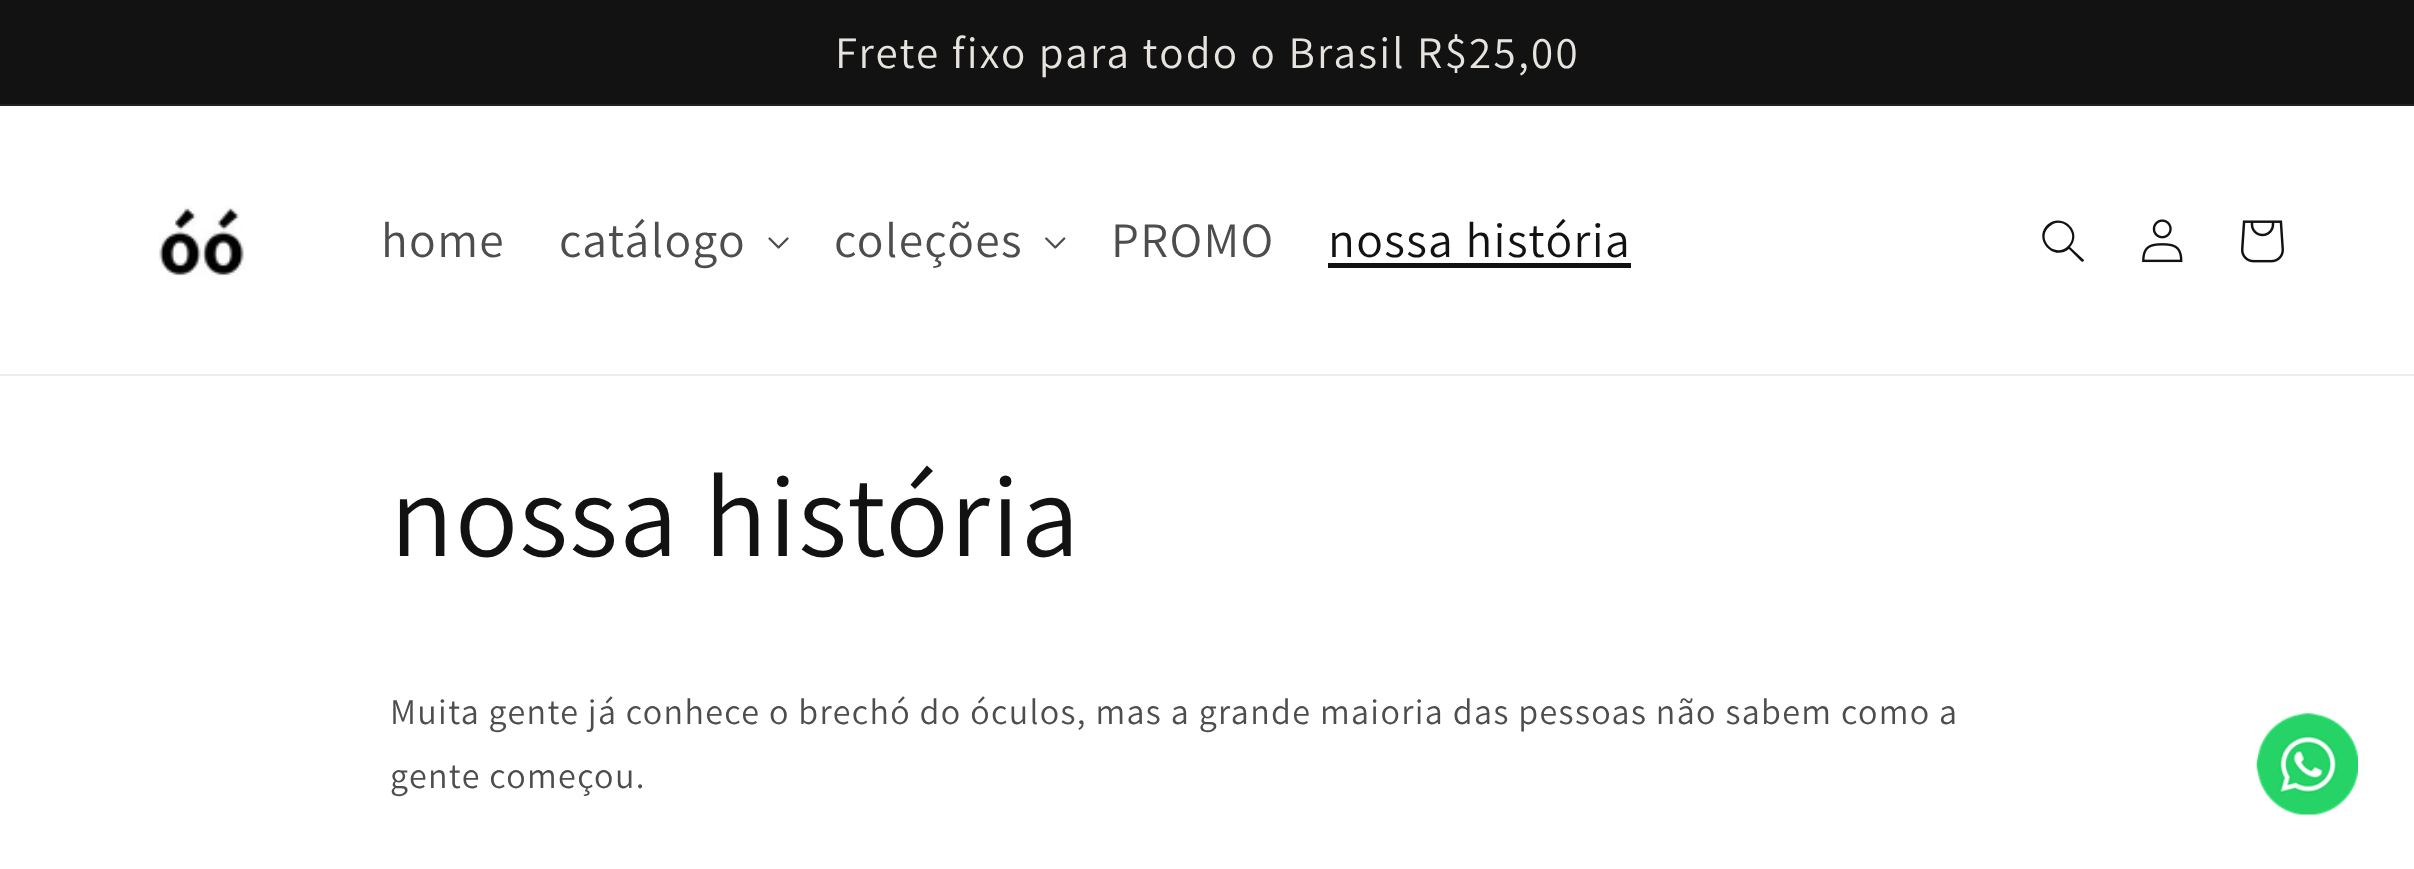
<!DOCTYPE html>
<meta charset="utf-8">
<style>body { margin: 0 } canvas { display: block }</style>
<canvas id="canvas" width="2414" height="869"></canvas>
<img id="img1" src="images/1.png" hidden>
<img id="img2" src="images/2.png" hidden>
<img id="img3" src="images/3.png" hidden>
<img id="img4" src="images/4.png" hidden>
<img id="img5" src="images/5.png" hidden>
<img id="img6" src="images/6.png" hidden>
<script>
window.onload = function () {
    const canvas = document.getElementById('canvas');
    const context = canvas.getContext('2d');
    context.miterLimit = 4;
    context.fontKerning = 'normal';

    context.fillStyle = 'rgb(255, 255, 255)';
    context.fillRect(0, 0, 2414, 869);
    context.fillStyle = 'rgb(18, 18, 18)';
    context.fillRect(0, 0, 2414, 104);
    context.fillStyle = 'rgb(35, 35, 34)';
    context.fillRect(0, 104, 2414, 2);
    context.fillStyle = 'rgb(236, 236, 236)';
    context.fillRect(0, 374, 2414, 2);
    context.drawImage(document.getElementById('img1'), 159, 205, 87, 72);
    context.drawImage(document.getElementById('img2'), 768, 237, 21, 12);
    context.drawImage(document.getElementById('img3'), 1045, 237, 21, 12);
    context.fillStyle = 'rgb(18, 18, 18)';
    context.fillRect(1328, 263, 303, 5);
    context.beginPath();
    context.moveTo(2068, 246);
    context.bezierCurveTo(2055, 259, 2036, 239, 2049, 227);
    context.bezierCurveTo(2061, 214, 2081, 233, 2068, 246);
    context.moveTo(2069, 249);
    context.bezierCurveTo(2053, 262, 2033, 239, 2047, 225);
    context.bezierCurveTo(2062, 211, 2084, 232, 2070, 247);
    context.lineTo(2084, 260);
    context.bezierCurveTo(2084, 262, 2082, 262, 2081, 261);
    context.closePath();
    context.fill('evenodd');
    context.drawImage(document.getElementById('img4'), 2142, 219, 41, 44);
    context.drawImage(document.getElementById('img5'), 2241, 220, 43, 43);
    context.drawImage(document.getElementById('img6'), 2256, 713, 102, 102);
    context.letterSpacing = '2.25px';
    context.font = '45px Assistant';
    context.fillStyle = 'rgb(231, 227, 222)';
    context.fillText('Frete fixo para todo o Brasil R$25,00', 835, 68);
    context.letterSpacing = '1.35px';
    context.font = '49.5px Assistant';
    context.fillStyle = 'rgb(77, 77, 77)';
    context.fillText('home', 381, 257);
    context.fillText('catálogo', 559, 257);
    context.fillText('coleções', 834, 257);
    context.fillText('PROMO', 1111, 257);
    context.fillStyle = 'rgb(18, 18, 18)';
    context.fillText('nossa história', 1328, 257);
    context.font = '117px Assistant';
    context.fillText('nossa história', 390, 556);
    context.font = '36px Assistant';
    context.fillStyle = 'rgb(77, 77, 77)';
    context.fillText('Muita gente já conhece o brechó do óculos, mas a grande maioria das pessoas não sabem como a', 390, 724);
    context.fillText('gente começou.', 390, 788);
};
</script>
